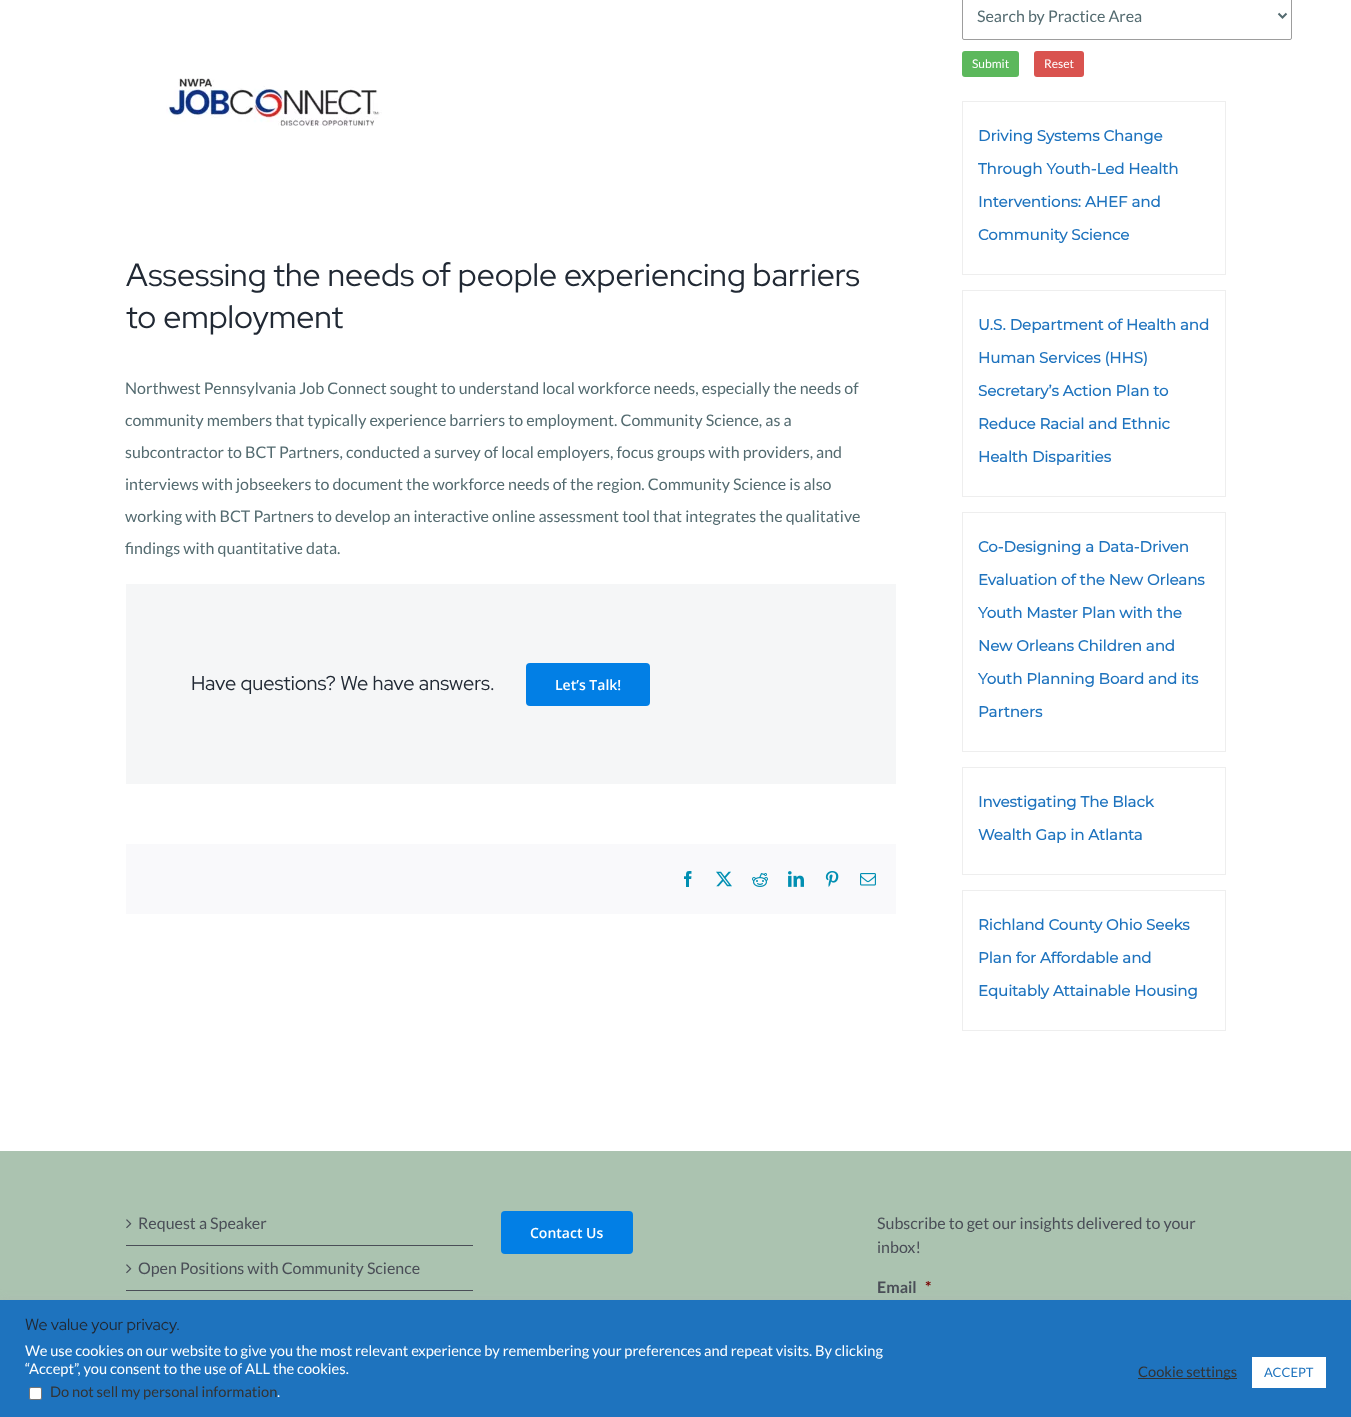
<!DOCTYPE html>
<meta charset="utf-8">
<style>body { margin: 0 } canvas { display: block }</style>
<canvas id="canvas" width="1351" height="1417"></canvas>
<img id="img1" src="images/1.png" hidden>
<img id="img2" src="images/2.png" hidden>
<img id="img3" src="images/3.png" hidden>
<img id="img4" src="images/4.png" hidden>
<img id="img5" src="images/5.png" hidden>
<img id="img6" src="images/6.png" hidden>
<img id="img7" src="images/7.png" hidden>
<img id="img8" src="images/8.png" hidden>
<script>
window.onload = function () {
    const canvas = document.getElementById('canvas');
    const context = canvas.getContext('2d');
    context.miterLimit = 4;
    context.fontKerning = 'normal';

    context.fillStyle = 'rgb(255, 255, 255)';
    context.fillRect(0, 0, 1351, 1417);
    context.drawImage(document.getElementById('img1'), 166, 78, 216, 48);
    context.fillStyle = 'rgb(245, 246, 247)';
    context.fillRect(126, 584, 770, 200);
    context.fillStyle = 'rgb(2, 127, 229)';
    context.beginPath();
    context.roundRect(526, 663, 124, 43, 4);
    context.fill();
    context.fillStyle = 'rgb(249, 249, 251)';
    context.fillRect(126, 844, 770, 70);
    context.drawImage(document.getElementById('img2'), 684, 871, 8, 16);
    context.drawImage(document.getElementById('img3'), 716, 871, 16, 16);
    context.drawImage(document.getElementById('img4'), 752, 873, 16, 14);
    context.drawImage(document.getElementById('img5'), 788, 871, 16, 16);
    context.drawImage(document.getElementById('img6'), 825, 871, 14, 16);
    context.drawImage(document.getElementById('img7'), 860, 873, 16, 13);
    context.beginPath();
    context.roundRect(962.5, -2.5, 329, 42, 1.5);
    context.strokeStyle = 'rgb(157, 157, 157)';
    context.stroke();
    context.beginPath();
    context.moveTo(1278.5, 13.5);
    context.lineTo(1282.5, 17.5);
    context.lineTo(1286.5, 13.5);
    context.strokeStyle = 'rgb(84, 107, 112)';
    context.lineWidth = 2;
    context.stroke();
    context.fillStyle = 'rgb(92, 184, 92)';
    context.beginPath();
    context.roundRect(962, 51, 57, 26, 3);
    context.fill();
    context.fillStyle = 'rgb(217, 83, 79)';
    context.beginPath();
    context.roundRect(1034, 51, 50, 26, 3);
    context.fill();
    context.strokeStyle = 'rgb(238, 238, 238)';
    context.lineWidth = 1;
    context.strokeRect(962.5, 101.5, 263, 173);
    context.strokeRect(962.5, 290.5, 263, 206);
    context.strokeRect(962.5, 512.5, 263, 239);
    context.strokeRect(962.5, 767.5, 263, 107);
    context.strokeRect(962.5, 890.5, 263, 140);
    context.fillStyle = 'rgb(171, 195, 176)';
    context.fillRect(0, 1151, 1351, 149);
    context.fillStyle = 'rgb(74, 78, 87)';
    context.fillRect(126, 1245, 347, 1);
    context.drawImage(document.getElementById('img8'), 126, 1219, 6, 10);
    context.fillRect(126, 1290, 347, 1);
    context.drawImage(document.getElementById('img8'), 126, 1264, 6, 10);
    context.fillStyle = 'rgb(2, 127, 229)';
    context.beginPath();
    context.roundRect(501, 1211, 132, 43, 4);
    context.fill();
    context.fillStyle = 'rgba(172, 171, 171, 0.3)';
    context.filter = 'blur(5px)';
    context.beginPath();
    context.rect(0, 1299, 1351, 117);
    context.fill();
    context.filter = 'none';
    context.fillStyle = 'rgb(30, 115, 190)';
    context.fillRect(0, 1300, 1351, 117);
    context.fillStyle = 'rgb(255, 255, 255)';
    context.beginPath();
    context.roundRect(29.5, 1387.5, 12, 12, 1.5);
    context.fill();
    context.strokeStyle = 'rgb(118, 118, 118)';
    context.stroke();
    context.fillStyle = 'rgb(51, 51, 51)';
    context.fillRect(1138, 1378, 99, 1);
    context.fillStyle = 'rgb(255, 255, 255)';
    context.fillRect(1252, 1357, 74, 31);
    context.font = '32px Red Hat Display';
    context.fillStyle = 'rgb(33, 41, 52)';
    context.fillText('Assessing the needs of people experiencing barriers', 126, 286);
    context.fillText('to employment', 126, 328);
    context.font = '16px Lato';
    context.fillStyle = 'rgb(84, 107, 112)';
    context.fillText('Northwest Pennsylvania Job Connect sought to understand local workforce needs, especially the needs of', 125, 394);
    context.fillText('community members that typically experience barriers to employment. Community Science, as a', 125, 426);
    context.fillText('subcontractor to BCT Partners, conducted a survey of local employers, focus groups with providers, and', 125, 458);
    context.fillText('interviews with jobseekers to document the workforce needs of the region. Community Science is also', 125, 490);
    context.fillText('working with BCT Partners to develop an interactive online assessment tool that integrates the qualitative', 125, 522);
    context.fillText('findings with quantitative data.', 125, 554);
    context.font = '20px Red Hat Display';
    context.fillStyle = 'rgb(33, 41, 52)';
    context.fillText('Have questions? We have answers.', 191, 690);
    context.font = '600 14px Open Sans';
    context.fillStyle = 'rgb(255, 255, 255)';
    context.fillText('Let’s Talk!', 555, 690);
    context.font = '16px Lato';
    context.fillStyle = 'rgb(84, 107, 112)';
    context.fillText('Search by Practice Area', 977, 22);
    context.font = '12px Lato';
    context.fillStyle = 'rgb(255, 255, 255)';
    context.fillText('Submit', 972, 68);
    context.fillText('Reset', 1044, 68);
    context.font = 'bold 15px Montserrat';
    context.fillStyle = 'rgb(30, 115, 190)';
    context.fillText('Driving Systems Change', 978, 141);
    context.fillText('Through Youth-Led Health', 978, 174);
    context.fillText('Interventions: AHEF and', 978, 207);
    context.fillText('Community Science', 978, 240);
    context.fillText('U.S. Department of Health and', 978, 330);
    context.fillText('Human Services (HHS)', 978, 363);
    context.fillText('Secretary’s Action Plan to', 978, 396);
    context.fillText('Reduce Racial and Ethnic', 978, 429);
    context.fillText('Health Disparities', 978, 462);
    context.fillText('Co-Designing a Data-Driven', 978, 552);
    context.fillText('Evaluation of the New Orleans', 978, 585);
    context.fillText('Youth Master Plan with the', 978, 618);
    context.fillText('New Orleans Children and', 978, 651);
    context.fillText('Youth Planning Board and its', 978, 684);
    context.fillText('Partners', 978, 717);
    context.fillText('Investigating The Black', 978, 807);
    context.fillText('Wealth Gap in Atlanta', 978, 840);
    context.fillText('Richland County Ohio Seeks', 978, 930);
    context.fillText('Plan for Affordable and', 978, 963);
    context.fillText('Equitably Attainable Housing', 978, 996);
    context.font = '16px Lato';
    context.fillStyle = 'rgb(74, 78, 87)';
    context.fillText('Request a Speaker', 138, 1229);
    context.fillText('Open Positions with Community Science', 138, 1274);
    context.font = '600 14px Open Sans';
    context.fillStyle = 'rgb(255, 255, 255)';
    context.fillText('Contact Us', 530, 1238);
    context.font = '16px Lato';
    context.fillStyle = 'rgb(74, 78, 87)';
    context.fillText('Subscribe to get our insights delivered to your', 877, 1229);
    context.fillText('inbox!', 877, 1253);
    context.font = 'bold 16px Lato';
    context.fillText('Email', 877, 1293);
    context.fillStyle = 'rgb(121, 0, 0)';
    context.fillText('*', 925, 1293);
    context.font = '16px Red Hat Display';
    context.fillStyle = 'rgb(33, 41, 52)';
    context.fillText('We value your privacy.', 25, 1330);
    context.font = '14.67px Lato';
    context.fillStyle = 'rgb(255, 255, 255)';
    context.fillText('We use cookies on our website to give you the most relevant experience by remembering your preferences and repeat visits. By clicking', 25, 1356);
    context.fillText('“Accept”, you consent to the use of ALL the cookies.', 25, 1374);
    context.fillStyle = 'rgb(51, 51, 51)';
    context.fillText('Do not sell my personal information', 50, 1397);
    context.fillStyle = 'rgb(255, 255, 255)';
    context.fillText('.', 277, 1397);
    context.fillStyle = 'rgb(51, 51, 51)';
    context.fillText('Cookie settings', 1138, 1377);
    context.font = '13px Lato';
    context.fillStyle = 'rgb(30, 115, 190)';
    context.fillText('ACCEPT', 1264, 1377);
};
</script>
